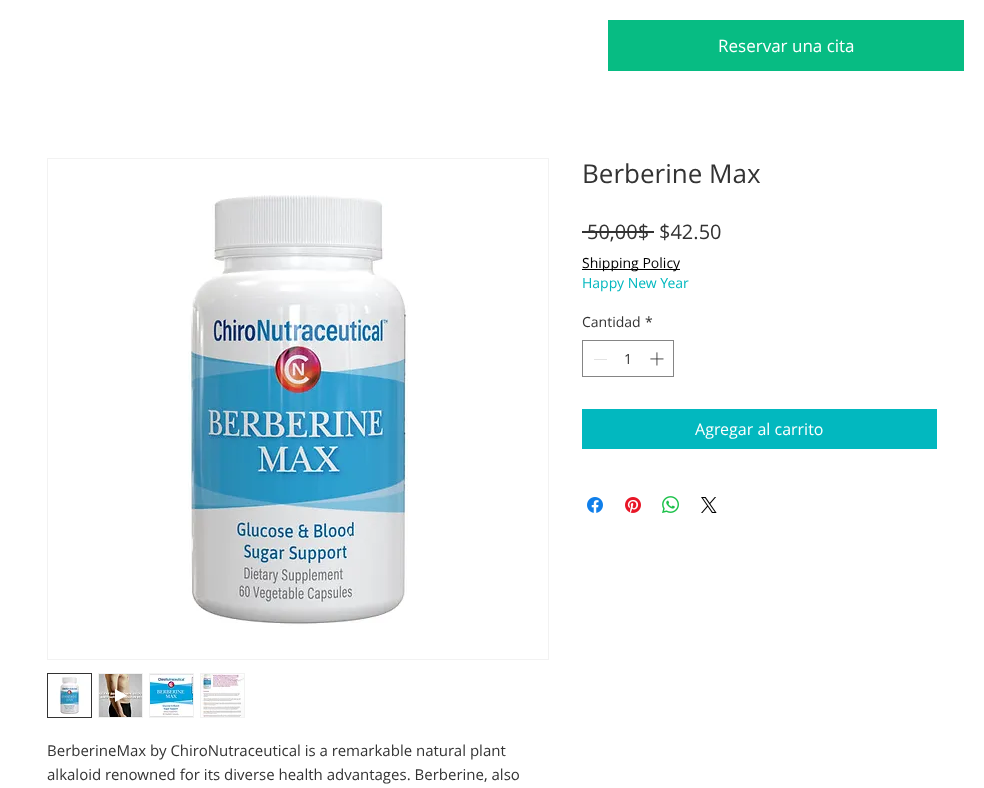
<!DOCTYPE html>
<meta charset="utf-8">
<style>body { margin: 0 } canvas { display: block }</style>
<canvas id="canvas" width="984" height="788"></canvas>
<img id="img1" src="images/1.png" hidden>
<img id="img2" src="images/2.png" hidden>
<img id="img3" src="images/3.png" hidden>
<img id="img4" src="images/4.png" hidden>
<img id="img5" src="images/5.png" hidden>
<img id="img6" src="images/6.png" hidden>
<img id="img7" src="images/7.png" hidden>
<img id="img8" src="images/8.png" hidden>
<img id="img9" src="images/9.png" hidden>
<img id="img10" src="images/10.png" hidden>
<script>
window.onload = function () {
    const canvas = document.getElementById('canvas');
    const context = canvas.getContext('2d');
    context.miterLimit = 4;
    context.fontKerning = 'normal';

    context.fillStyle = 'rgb(255, 255, 255)';
    context.fillRect(0, 0, 984, 788);
    context.fillStyle = 'rgb(7, 188, 131)';
    context.fillRect(608, 20, 356, 51);
    context.fillStyle = 'rgb(51, 51, 51)';
    context.fillRect(582, 231, 72, 2);
    context.fillStyle = 'rgb(0, 0, 0)';
    context.fillRect(582, 269, 98, 1);
    context.strokeStyle = 'rgb(133, 133, 133)';
    context.strokeRect(582.5, 340.5, 91, 36);
    context.fillStyle = 'rgb(227, 227, 227)';
    context.fillRect(594, 359, 13, 1);
    context.drawImage(document.getElementById('img1'), 650, 352, 14, 14);
    context.fillStyle = 'rgb(2, 184, 191)';
    context.fillRect(582, 409, 355, 40);
    context.drawImage(document.getElementById('img2'), 587, 497, 16, 16);
    context.drawImage(document.getElementById('img3'), 625, 497, 16, 16);
    context.drawImage(document.getElementById('img4'), 662, 496, 17, 17);
    context.drawImage(document.getElementById('img5'), 701, 497, 16, 16);
    context.strokeStyle = 'rgb(242, 242, 242)';
    context.strokeRect(47.5, 158.5, 501, 501);
    context.drawImage(document.getElementById('img6'), 188, 195, 220, 432);
    context.strokeStyle = 'rgb(51, 51, 51)';
    context.strokeRect(47.5, 673.5, 44, 44);
    context.drawImage(document.getElementById('img7'), 48, 674, 43, 43);
    context.fillStyle = 'rgb(242, 242, 242)';
    context.fillRect(98, 673, 45, 45);
    context.drawImage(document.getElementById('img8'), 99, 674, 43, 43);
    context.fillStyle = 'rgb(255, 255, 255)';
    context.beginPath();
    context.moveTo(115, 689);
    context.lineTo(115, 702);
    context.lineTo(127, 695.5);
    context.closePath();
    context.fill();
    context.fillStyle = 'rgb(242, 242, 242)';
    context.fillRect(149, 673, 45, 45);
    context.drawImage(document.getElementById('img9'), 150, 674, 43, 43);
    context.fillRect(200, 673, 45, 45);
    context.drawImage(document.getElementById('img10'), 201, 674, 43, 43);
    context.font = '17px Open Sans';
    context.fillStyle = 'rgb(255, 255, 255)';
    context.fillText('Reservar una cita', 718, 52);
    context.font = '26px Open Sans';
    context.fillStyle = 'rgb(51, 51, 51)';
    context.fillText('Berberine Max', 582, 183);
    context.font = '20px Open Sans';
    context.fillText('50,00$', 587, 239);
    context.fillText('$42.50', 659, 239);
    context.font = '14px Open Sans';
    context.fillStyle = 'rgb(0, 0, 0)';
    context.fillText('Shipping Policy', 582, 268);
    context.fillStyle = 'rgb(2, 184, 191)';
    context.fillText('Happy New Year', 582, 288);
    context.fillStyle = 'rgb(51, 51, 51)';
    context.fillText('Cantidad', 582, 327);
    context.fillText('*', 645, 327);
    context.fillText('1', 624, 364);
    context.font = '16px Open Sans';
    context.fillStyle = 'rgb(255, 255, 255)';
    context.fillText('Agregar al carrito', 695, 435);
    context.font = '15px Open Sans';
    context.fillStyle = 'rgb(51, 51, 51)';
    context.fillText('BerberineMax by ChiroNutraceutical is a remarkable natural plant', 47, 756);
    context.fillText('alkaloid renowned for its diverse health advantages. Berberine, also', 47, 780);
};
</script>
